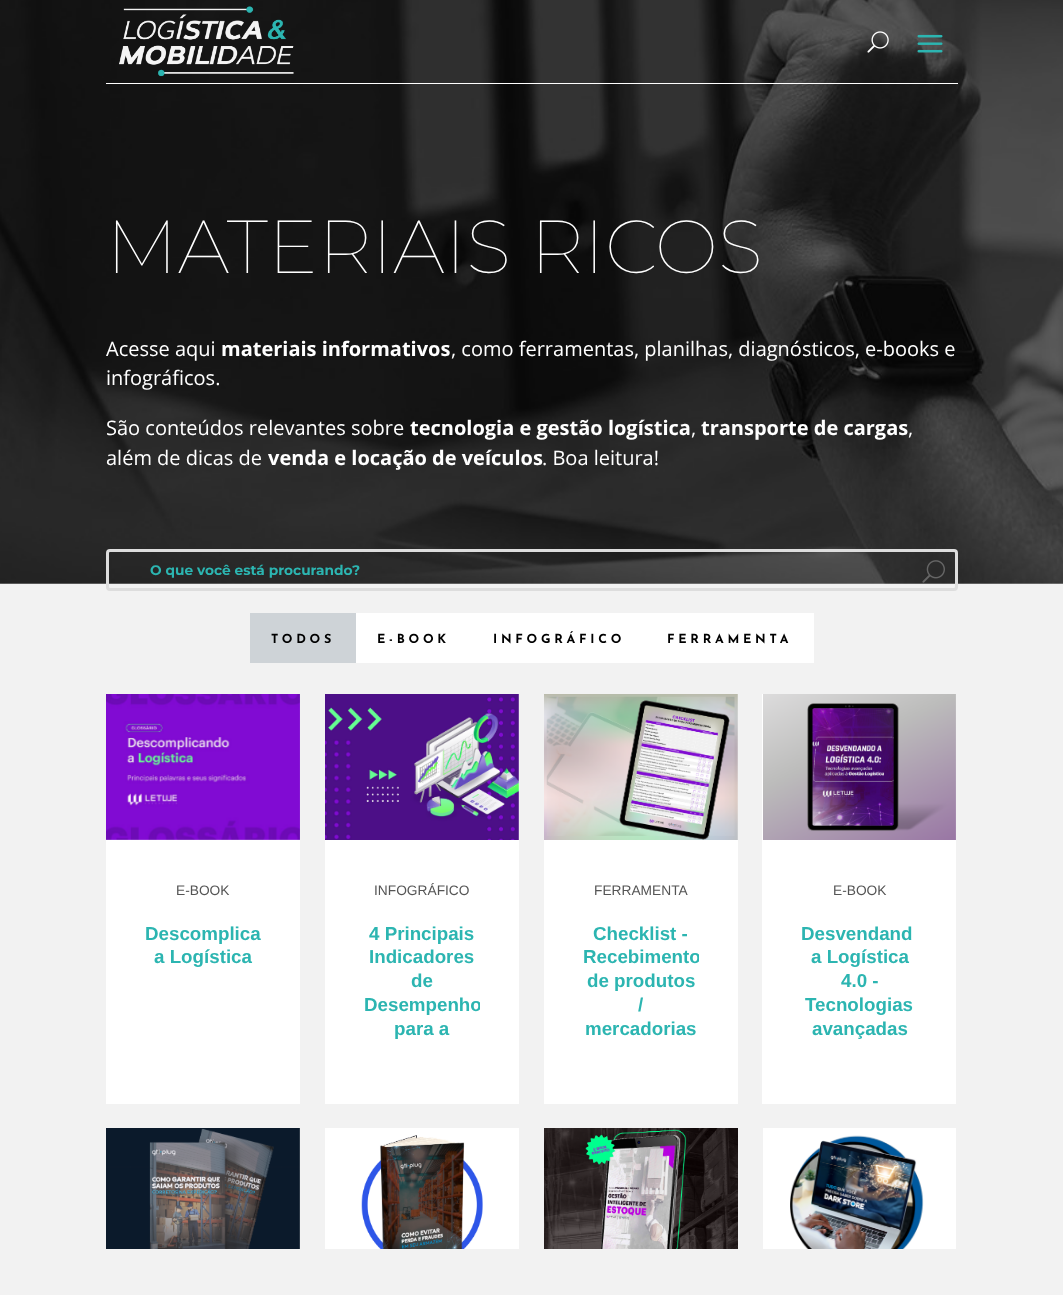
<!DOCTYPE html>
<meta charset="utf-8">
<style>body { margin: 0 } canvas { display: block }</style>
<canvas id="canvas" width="1063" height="1295"></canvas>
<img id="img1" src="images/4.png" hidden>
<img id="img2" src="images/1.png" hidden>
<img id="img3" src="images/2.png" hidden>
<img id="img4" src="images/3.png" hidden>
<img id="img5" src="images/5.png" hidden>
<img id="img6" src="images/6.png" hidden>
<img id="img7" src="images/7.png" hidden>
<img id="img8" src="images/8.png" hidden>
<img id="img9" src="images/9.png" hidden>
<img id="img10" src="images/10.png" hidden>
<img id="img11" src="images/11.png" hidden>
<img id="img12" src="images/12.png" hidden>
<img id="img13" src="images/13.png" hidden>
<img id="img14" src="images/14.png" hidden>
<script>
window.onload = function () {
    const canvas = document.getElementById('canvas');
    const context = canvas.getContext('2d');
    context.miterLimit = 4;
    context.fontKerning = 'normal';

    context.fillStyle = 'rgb(255, 255, 255)';
    context.fillRect(0, 0, 1063, 1295);
    context.drawImage(document.getElementById('img1'), 0, 0, 1063, 584);
    context.fillRect(106, 83, 852, 1);
    context.drawImage(document.getElementById('img2'), 119, 6, 175, 71);
    context.drawImage(document.getElementById('img3'), 867, 31, 22, 22);
    context.drawImage(document.getElementById('img4'), 917, 34, 26, 19);
    context.fillStyle = 'rgb(242, 242, 242)';
    context.fillRect(0, 584, 1063, 711);
    context.beginPath();
    context.roundRect(107.5, 550.5, 849, 39, 2.5);
    context.strokeStyle = 'rgb(221, 221, 221)';
    context.lineWidth = 3;
    context.stroke();
    context.drawImage(document.getElementById('img5'), 922, 560, 23, 23);
    context.fillStyle = 'rgb(206, 211, 215)';
    context.fillRect(250, 613, 106, 50);
    context.fillStyle = 'rgb(255, 255, 255)';
    context.fillRect(356, 613, 458, 50);
    context.fillRect(106, 694, 194, 410);
    context.drawImage(document.getElementById('img6'), 106, 694, 194, 146);
    context.fillRect(325, 694, 194, 410);
    context.drawImage(document.getElementById('img7'), 325, 694, 194, 146);
    context.drawImage(document.getElementById('img8'), 737, 694, 1, 146);
    context.drawImage(document.getElementById('img9'), 544, 694, 194, 146);
    context.fillRect(544, 840, 194, 264);
    context.fillRect(762, 694, 194, 410);
    context.drawImage(document.getElementById('img10'), 763, 694, 193, 146);
    context.drawImage(document.getElementById('img11'), 106, 1128, 194, 121);
    context.fillRect(325, 1128, 194, 121);
    context.drawImage(document.getElementById('img12'), 361, 1135, 122, 114);
    context.drawImage(document.getElementById('img13'), 544, 1128, 194, 121);
    context.fillRect(763, 1128, 193, 121);
    context.drawImage(document.getElementById('img14'), 790, 1135, 134, 114);
    context.font = '100 75px Montserrat';
    context.fillText('MATERIAIS RICOS', 106, 273);
    context.font = '20px Open Sans';
    context.fillText('Acesse aqui', 106, 356);
    context.font = 'bold 20px Open Sans';
    context.fillText('materiais informativos', 221, 356);
    context.font = '20px Open Sans';
    context.fillText(', como ferramentas, planilhas, diagnósticos, e-books e', 451, 356);
    context.fillText('infográficos.', 106, 385);
    context.fillText('São conteúdos relevantes sobre', 106, 435);
    context.font = 'bold 20px Open Sans';
    context.fillText('tecnologia e gestão logística', 410, 435);
    context.font = '20px Open Sans';
    context.fillText(',', 691, 435);
    context.font = 'bold 20px Open Sans';
    context.fillText('transporte de cargas', 701, 435);
    context.font = '20px Open Sans';
    context.fillText(',', 908, 435);
    context.fillText('além de dicas de', 106, 465);
    context.font = 'bold 20px Open Sans';
    context.fillText('venda e locação de veículos', 268, 465);
    context.font = '20px Open Sans';
    context.fillText('. Boa leitura!', 542, 465);
    context.font = 'bold 13.75px Montserrat';
    context.fillStyle = 'rgb(44, 181, 177)';
    context.fillText('O que você está procurando?', 150, 575);
    context.letterSpacing = '3.75px';
    context.font = 'bold 12.5px Josefin Sans';
    context.fillStyle = 'rgb(0, 0, 0)';
    context.fillText('TODOS', 271, 643);
    context.fillText('E-BOOK', 377, 643);
    context.fillText('INFOGRÁFICO', 493, 643);
    context.fillText('FERRAMENTA', 667, 643);
    context.letterSpacing = '0px';
    context.font = '13.75px Liberation Sans';
    context.fillStyle = 'rgb(85, 85, 85)';
    context.fillText('E-BOOK', 176, 895);
    context.font = 'bold 18.75px Liberation Sans';
    context.fillStyle = 'rgb(44, 181, 177)';
    context.fillText('Descomplica', 145, 940);
    context.fillText('a Logística', 154, 963);
    context.font = '13.75px Liberation Sans';
    context.fillStyle = 'rgb(85, 85, 85)';
    context.fillText('INFOGRÁFICO', 374, 895);
    context.font = 'bold 18.75px Liberation Sans';
    context.fillStyle = 'rgb(44, 181, 177)';
    context.fillText('4 Principais', 369, 940);
    context.fillText('Indicadores', 369, 963);
    context.fillText('de', 411, 987);
    context.save();
    context.beginPath();
    context.rect(364, 921, 116, 125);
    context.clip();
    context.fillText('Desempenho', 364, 1011);
    context.restore();
    context.fillText('para a', 394, 1035);
    context.font = '13.75px Liberation Sans';
    context.fillStyle = 'rgb(85, 85, 85)';
    context.fillText('FERRAMENTA', 594, 895);
    context.font = 'bold 18.75px Liberation Sans';
    context.fillStyle = 'rgb(44, 181, 177)';
    context.fillText('Checklist -', 593, 940);
    context.save();
    context.beginPath();
    context.rect(583, 921, 116, 125);
    context.clip();
    context.fillText('Recebimento', 583, 963);
    context.restore();
    context.fillText('de produtos', 587, 987);
    context.fillText('/', 638, 1011);
    context.fillText('mercadorias', 585, 1035);
    context.font = '13.75px Liberation Sans';
    context.fillStyle = 'rgb(85, 85, 85)';
    context.fillText('E-BOOK', 833, 895);
    context.font = 'bold 18.75px Liberation Sans';
    context.fillStyle = 'rgb(44, 181, 177)';
    context.fillText('Desvendand', 801, 940);
    context.fillText('a Logística', 811, 963);
    context.fillText('4.0 -', 841, 987);
    context.fillText('Tecnologias', 805, 1011);
    context.fillText('avançadas', 812, 1035);
};
</script>
